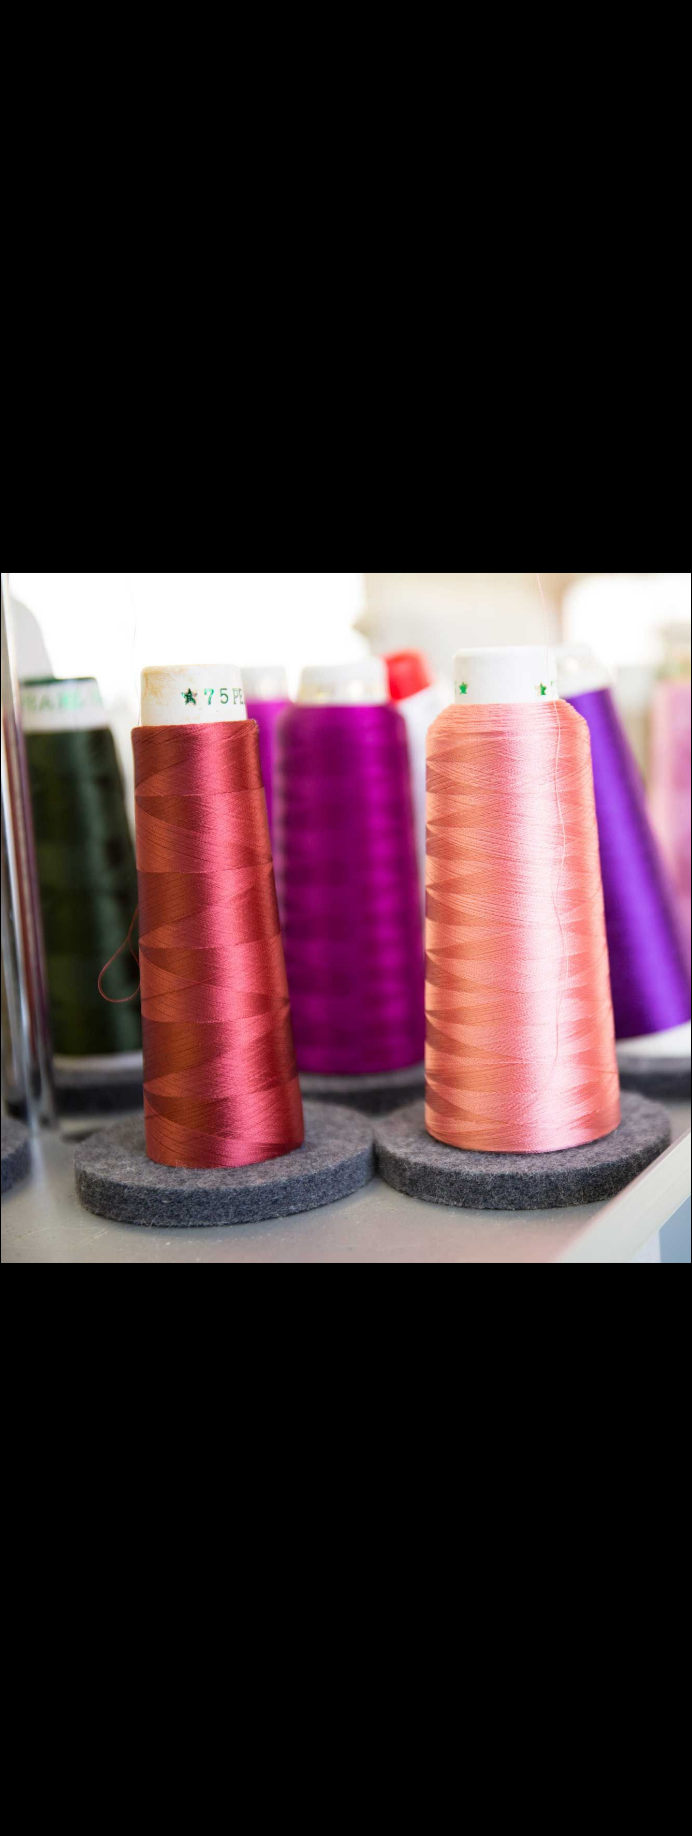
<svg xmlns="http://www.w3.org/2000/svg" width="692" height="1836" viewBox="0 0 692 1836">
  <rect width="100%" height="100%" fill="#000"/>
  <image x="1" y="572" width="690" height="691" href="img/1.png"/>
</svg>
